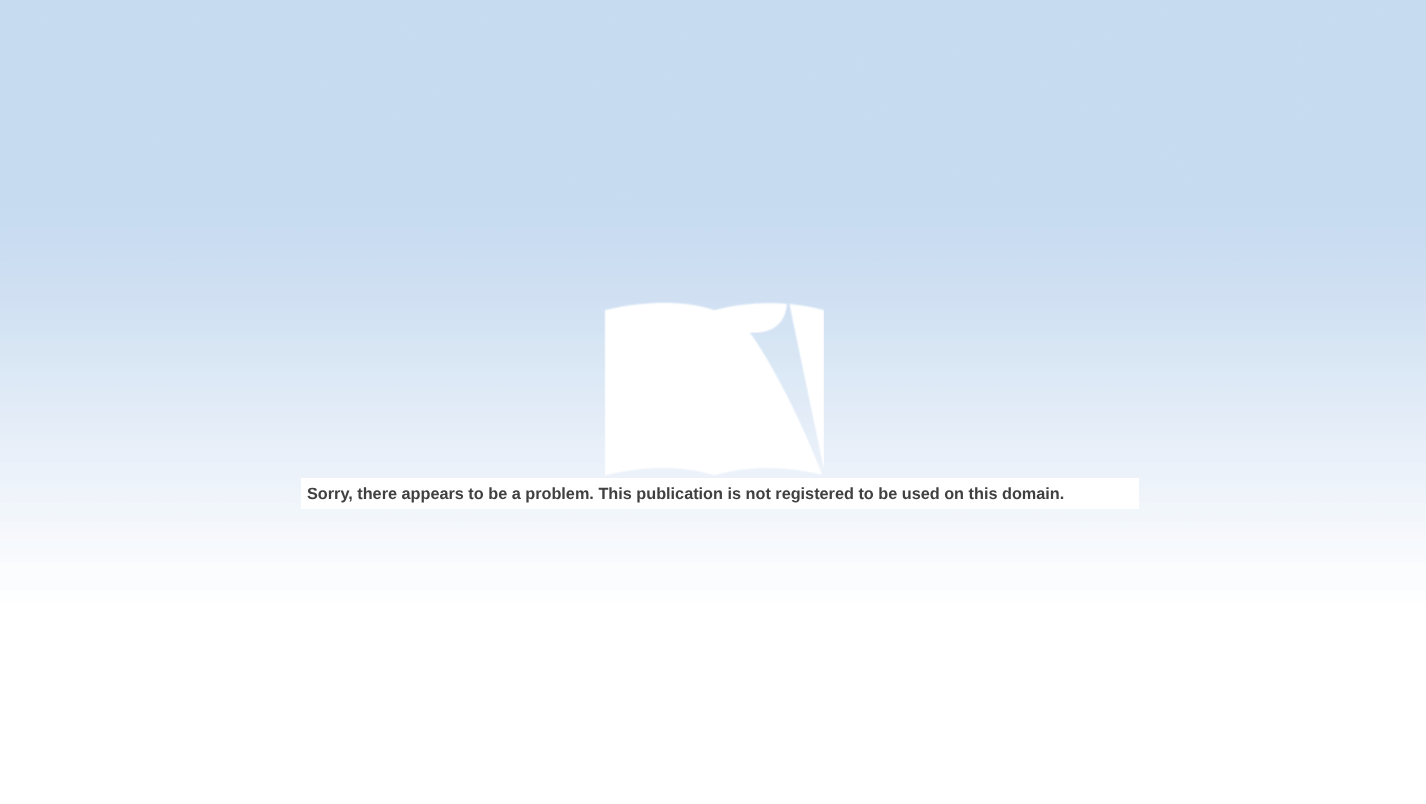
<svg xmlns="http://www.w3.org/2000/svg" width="1426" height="804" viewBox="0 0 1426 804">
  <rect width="100%" height="100%" fill="#fff"/>
  <image x="0" y="0" width="1426" height="804" href="img/1.png"/>
  <image x="604" y="302" width="220" height="174" href="img/2.png"/>
  <path d="M301 478h838v31H301z" fill="#fff"/>
  <text x="307" y="499" font-family="Liberation Sans" font-size="16.25" font-weight="bold" fill="#404040">Sorry, there appears to be a problem. This publication is not registered to be used on this domain.</text>
</svg>
